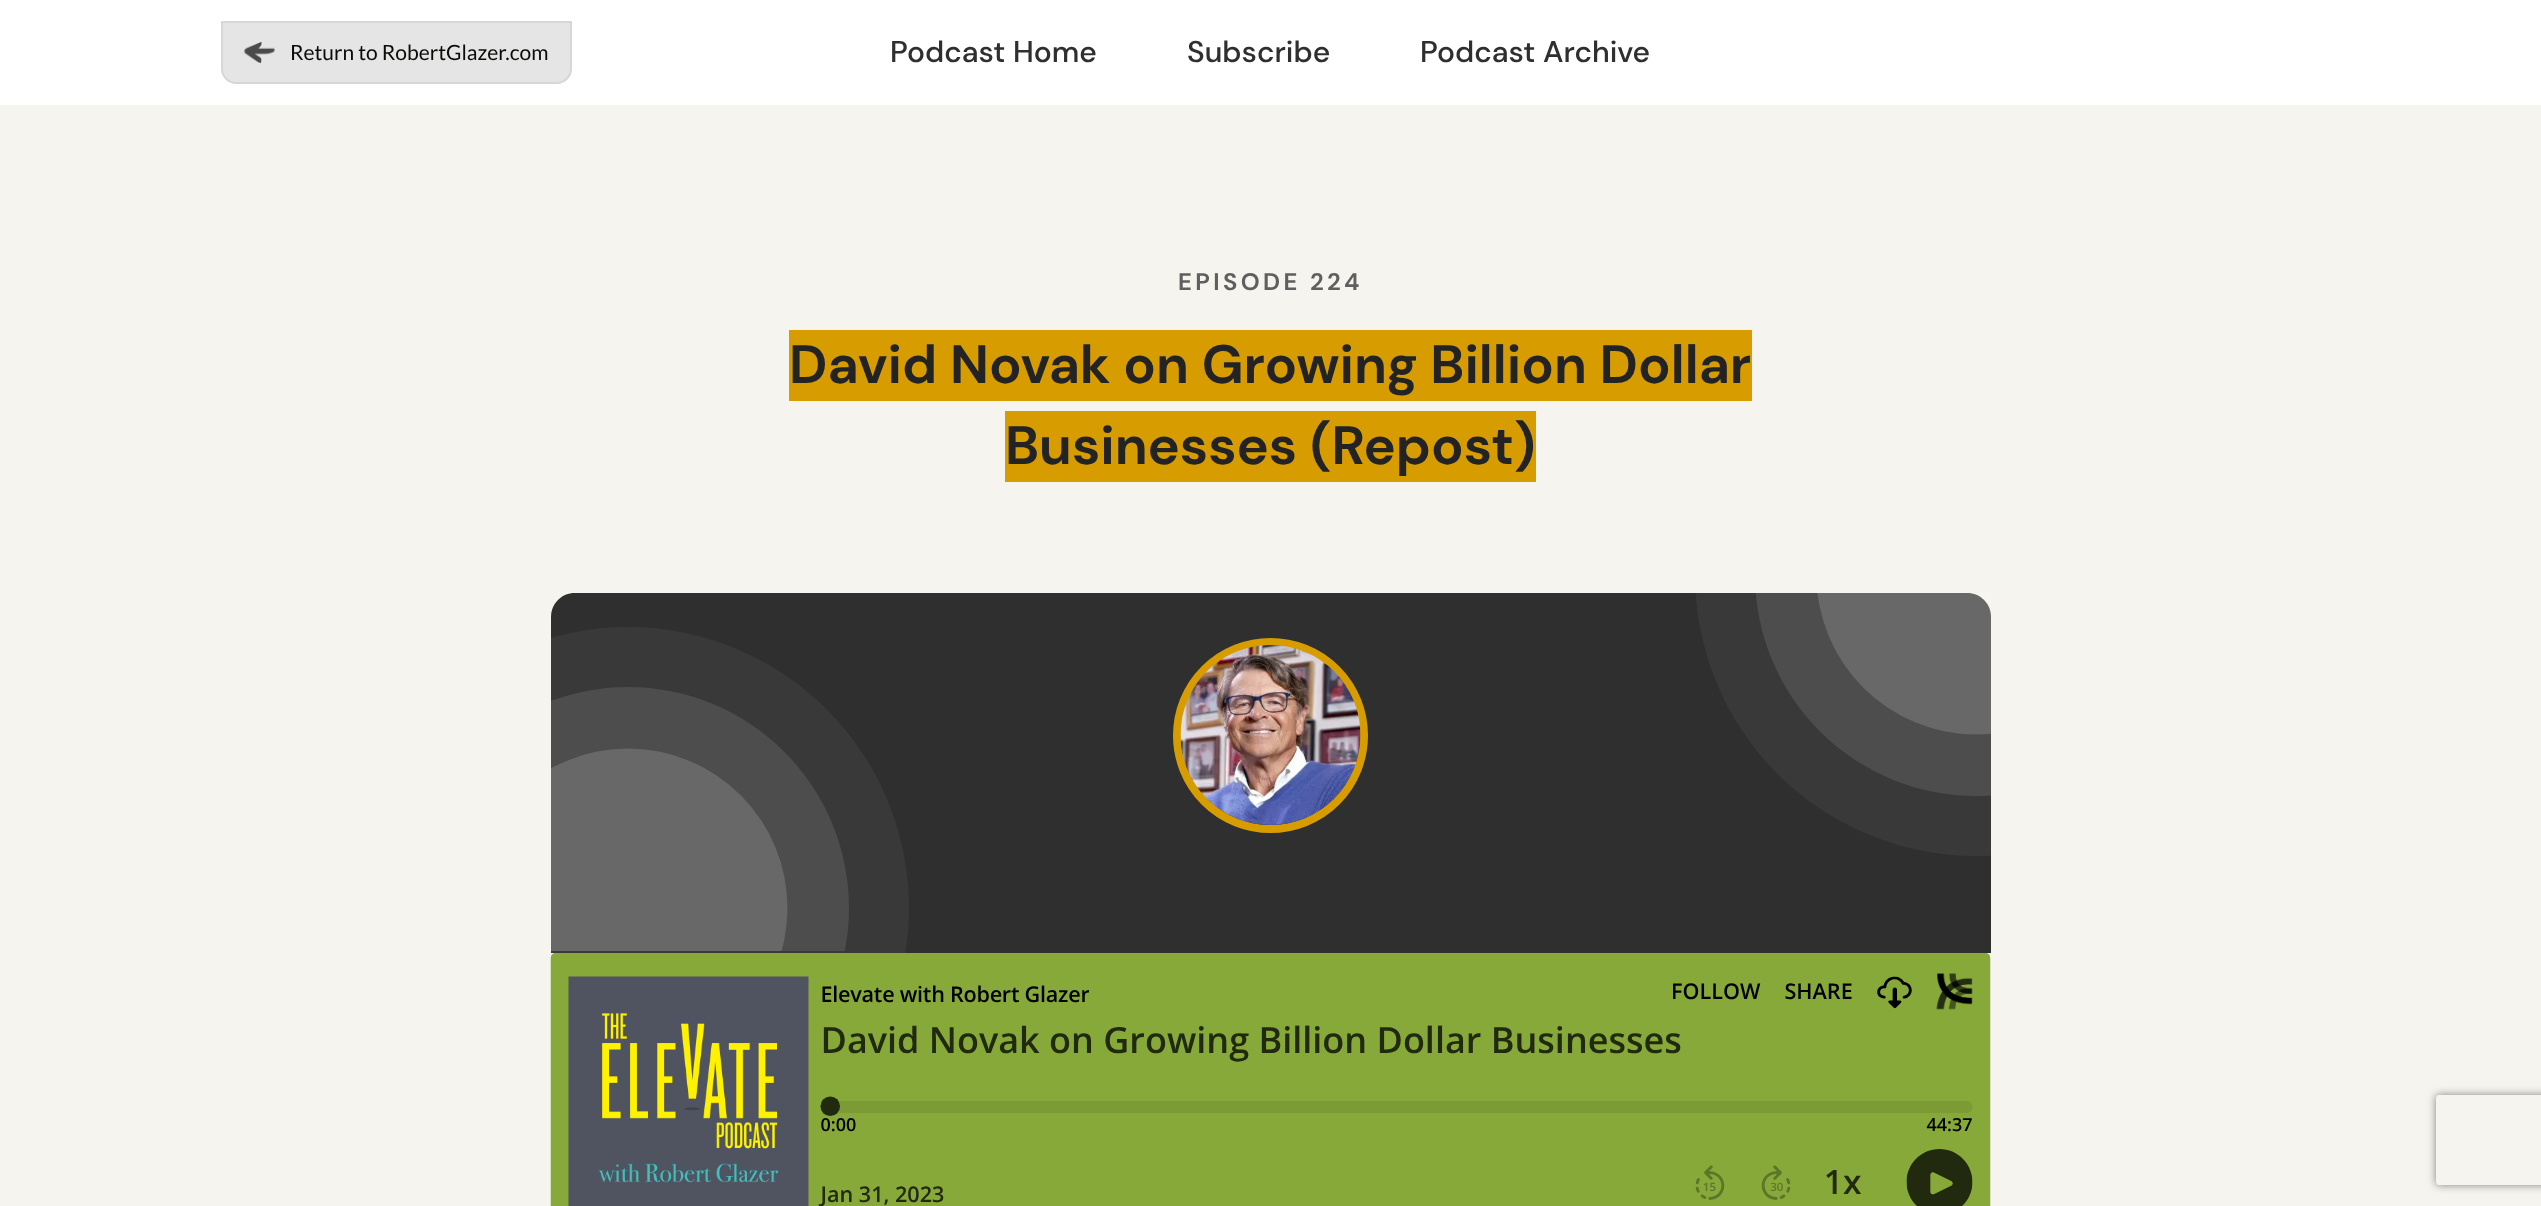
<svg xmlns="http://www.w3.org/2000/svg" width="2541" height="1206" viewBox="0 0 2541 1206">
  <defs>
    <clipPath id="clip1"><path d="M551 627h358v324H551z"/></clipPath>
    <clipPath id="clip2"><path d="M1695 593h296v264H1695z"/></clipPath>
    <clipPath id="clip3"><path d="M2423 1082H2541V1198H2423ZM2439 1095H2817C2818.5 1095 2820 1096.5 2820 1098V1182C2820 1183.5 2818.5 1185 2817 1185H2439C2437.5 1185 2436 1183.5 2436 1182V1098C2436 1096.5 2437.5 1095 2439 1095Z" clip-rule="evenodd"/></clipPath>
  </defs>
  <rect width="100%" height="100%" fill="#fff"/>
  <path d="M222 22H571V69C571 76.5 564.5 83 557 83H236C228.5 83 222 76.5 222 69Z" fill="#e5e5e5" stroke="#d7d7d7" stroke-width="2"/>
  <image x="244" y="42" width="31" height="21" href="img/1.png"/>
  <path d="M0 105h2541v1101H0z" fill="#f5f4ee"/>
  <path d="M789 330h963v71H789z" fill="#d79d00"/>
  <path d="M1005 411h531v71H1005z" fill="#d79d00"/>
  <path d="M575 593H1967C1980.5 593 1991 603.5 1991 617V953H551V617C551 603.5 561.5 593 575 593Z" fill="#2f2f2f"/>
  <g clip-path="url(#clip1)">
    <circle cx="628" cy="908" r="159.5" fill="#4e4e4e"/>
    <circle cx="628" cy="908" r="221" fill="#ffffff1a"/>
  </g>
  <circle cx="628" cy="908" r="281" fill="#ffffff0d"/>
  <circle cx="1270.5" cy="735.5" r="93.5" fill="none" stroke="#d79d00" stroke-width="8"/>
  <image x="1180" y="645" width="181" height="180" href="img/2.png"/>
  <g clip-path="url(#clip2)">
    <circle cx="1976" cy="575" r="159.5" fill="#ffffff26"/>
    <circle cx="1976" cy="575" r="221" fill="#ffffff1a"/>
  </g>
  <circle cx="1976" cy="575" r="281" fill="#ffffff0d"/>
  <image x="550" y="953" width="1441" height="253" href="img/3.png"/>
  <g clip-path="url(#clip3)">
    <rect x="2436" y="1095" width="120" height="90" rx="3" fill="#808080" filter="blur(4px)"/>
  </g>
  <text x="290" y="60" font-family="Lato" font-size="21" fill="#0a0c08">Return to RobertGlazer.com</text>
  <g font-family="DM Sans" font-size="30" font-weight="500" fill="#2f2f2f">
    <text x="890" y="62">Podcast Home</text>
    <text x="1187" y="62">Subscribe</text>
    <text x="1420" y="62">Podcast Archive</text>
  </g>
  <text x="1178" y="290" font-family="DM Sans" font-size="24" font-weight="bold" letter-spacing="3.4" fill="#5f5f5f">EPISODE 224</text>
  <g font-family="DM Sans" font-size="54" font-weight="bold" fill="#232323">
    <text x="789" y="383">David Novak on Growing Billion Dollar</text>
    <text x="1005" y="464">Businesses (Repost)</text>
  </g>
</svg>
